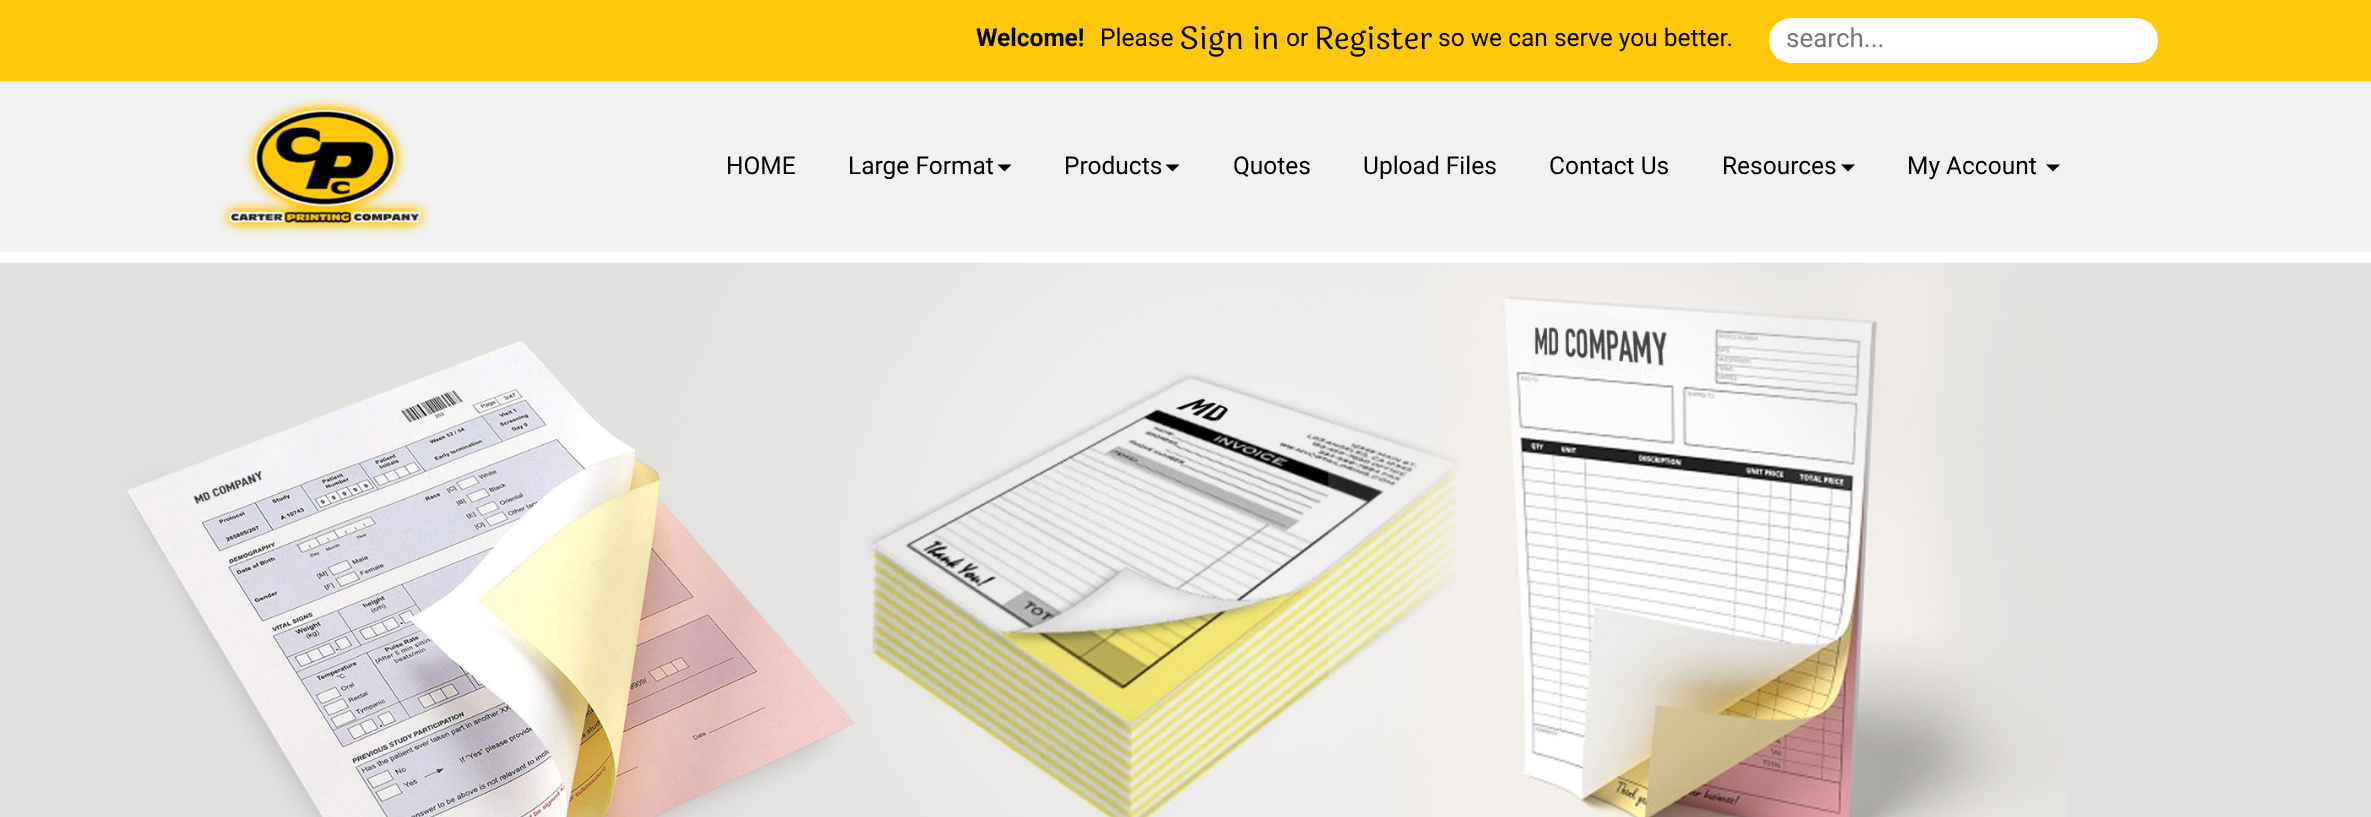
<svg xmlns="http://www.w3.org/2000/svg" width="2371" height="817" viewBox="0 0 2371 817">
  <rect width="100%" height="100%" fill="#fff"/>
  <path d="M0 81h2371v171H0z" fill="#f1f1f1"/>
  <path d="M0 0h2371v81H0z" fill="#ffc80b"/>
  <rect x="1769" y="18" width="389" height="45" rx="22.5" fill="#fff"/>
  <image x="219" y="98" width="212" height="137" href="img/1.png"/>
  <path d="M997.5 164.5H1011.5L1004.5 171.5Z" fill="#000"/>
  <path d="M1165.5 164.5H1179.5L1172.5 171.5Z" fill="#000"/>
  <path d="M1841 164.5H1855L1848 171.5Z" fill="#000"/>
  <path d="M2046 164.5H2060L2053 171.5Z" fill="#000"/>
  <image x="0" y="262" width="2371" height="555" href="img/2.png"/>
  <text x="976" y="46" font-family="Roboto" font-size="24.5" font-weight="bold" fill="#000">Welcome!</text>
  <text x="1100" y="46" font-family="Roboto" font-size="24.5" fill="#000">Please</text>
  <text x="1179" y="49" font-family="Laila" font-size="31.5" fill="#000">Sign in</text>
  <text x="1286" y="46" font-family="Roboto" font-size="24.5" fill="#000">or</text>
  <text x="1314" y="49" font-family="Laila" font-size="31.5" fill="#000">Register</text>
  <text x="1438" y="46" font-family="Roboto" font-size="24.5" fill="#000">so we can serve you better.</text>
  <text x="1786" y="47" font-family="Roboto" font-size="26" fill="#757575">search...</text>
  <g font-family="Roboto" font-size="24.5" fill="#000">
    <text x="726" y="174">HOME</text>
    <text x="848" y="174">Large Format</text>
    <text x="1064" y="174">Products</text>
    <text x="1233" y="174">Quotes</text>
    <text x="1363" y="174">Upload Files</text>
    <text x="1549" y="174">Contact Us</text>
    <text x="1722" y="174">Resources</text>
    <text x="1907" y="174">My Account</text>
  </g>
</svg>
